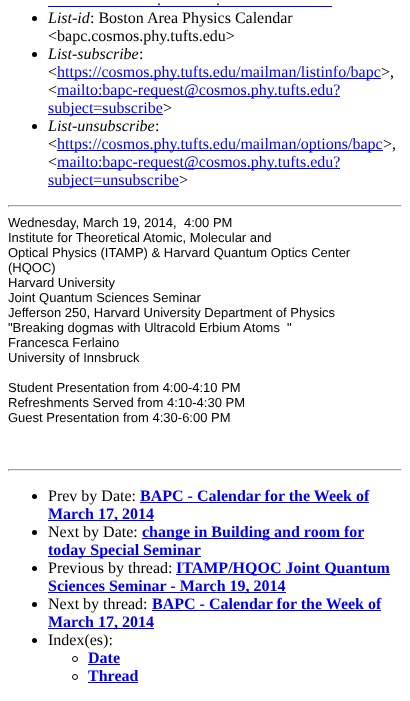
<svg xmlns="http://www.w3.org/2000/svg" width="410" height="701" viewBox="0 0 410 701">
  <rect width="100%" height="100%" fill="#fff"/>
  <path d="M48 6h284v1H48z" fill="#00e"/>
  <circle cx="34.5" cy="18.5" r="2.5" fill="#000"/>
  <circle cx="34.5" cy="54.5" r="2.5" fill="#000"/>
  <path d="M57 78h324v1H57z" fill="#00e"/>
  <path d="M57 96h283v1H57z" fill="#00e"/>
  <path d="M48 114h115v1H48z" fill="#00e"/>
  <circle cx="34.5" cy="126.5" r="2.5" fill="#000"/>
  <path d="M57 150h326v1H57z" fill="#00e"/>
  <path d="M57 168h283v1H57z" fill="#00e"/>
  <path d="M48 186h131v1H48z" fill="#00e"/>
  <path d="M8 205h394v1H8z" fill="#9f9f9f"/>
  <path d="M401 205h1v2H401z" fill="#eee"/>
  <path d="M8 206h394v1H8z" fill="#eee"/>
  <path d="M8 205h1v2H8z" fill="#9f9f9f"/>
  <path d="M8 469h394v1H8z" fill="#9f9f9f"/>
  <path d="M401 469h1v2H401z" fill="#eee"/>
  <path d="M8 470h394v1H8z" fill="#eee"/>
  <path d="M8 469h1v2H8z" fill="#9f9f9f"/>
  <circle cx="34.5" cy="496.5" r="2.5" fill="#000"/>
  <path d="M140 502h229v1H140z" fill="#00e"/>
  <path d="M48 520h106v1H48z" fill="#00e"/>
  <circle cx="34.5" cy="532.5" r="2.5" fill="#000"/>
  <path d="M142 538h222v1H142z" fill="#00e"/>
  <path d="M48 556h153v1H48z" fill="#00e"/>
  <circle cx="34.5" cy="568.5" r="2.5" fill="#000"/>
  <path d="M176 574h214v1H176z" fill="#00e"/>
  <path d="M48 592h238v1H48z" fill="#00e"/>
  <circle cx="34.5" cy="604.5" r="2.5" fill="#000"/>
  <path d="M152 610h229v1H152z" fill="#00e"/>
  <path d="M48 628h106v1H48z" fill="#00e"/>
  <circle cx="34.5" cy="640.5" r="2.5" fill="#000"/>
  <circle cx="75" cy="659" r="2.5" fill="none" stroke="#000"/>
  <path d="M88 664h32v1H88z" fill="#00e"/>
  <circle cx="75" cy="677" r="2.5" fill="none" stroke="#000"/>
  <path d="M88 682h50v1H88z" fill="#00e"/>
  <g font-family="Liberation Serif" font-size="16" fill="#00e">
    <text x="157" y="5">.</text>
    <text x="216" y="5">.</text>
  </g>
  <text x="48" y="23" font-family="Liberation Serif" font-size="16" font-style="italic" fill="#000">List-id</text>
  <g font-family="Liberation Serif" font-size="16" fill="#000">
    <text x="90" y="23">: Boston Area Physics Calendar</text>
    <text x="48" y="41">&lt;bapc.cosmos.phy.tufts.edu&gt;</text>
  </g>
  <text x="48" y="59" font-family="Liberation Serif" font-size="16" font-style="italic" fill="#000">List-subscribe</text>
  <g font-family="Liberation Serif" font-size="16" fill="#000">
    <text x="139" y="59">:</text>
    <text x="48" y="77">&lt;</text>
  </g>
  <text x="57" y="77" font-family="Liberation Serif" font-size="16" fill="#00e">https://cosmos.phy.tufts.edu/mailman/listinfo/bapc</text>
  <g font-family="Liberation Serif" font-size="16" fill="#000">
    <text x="381" y="77">&gt;,</text>
    <text x="48" y="95">&lt;</text>
  </g>
  <g font-family="Liberation Serif" font-size="16" fill="#00e">
    <text x="57" y="95">mailto:bapc-request@cosmos.phy.tufts.edu?</text>
    <text x="48" y="113">subject=subscribe</text>
  </g>
  <text x="163" y="113" font-family="Liberation Serif" font-size="16" fill="#000">&gt;</text>
  <text x="48" y="131" font-family="Liberation Serif" font-size="16" font-style="italic" fill="#000">List-unsubscribe</text>
  <g font-family="Liberation Serif" font-size="16" fill="#000">
    <text x="155" y="131">:</text>
    <text x="48" y="149">&lt;</text>
  </g>
  <text x="57" y="149" font-family="Liberation Serif" font-size="16" fill="#00e">https://cosmos.phy.tufts.edu/mailman/options/bapc</text>
  <g font-family="Liberation Serif" font-size="16" fill="#000">
    <text x="383" y="149">&gt;,</text>
    <text x="48" y="167">&lt;</text>
  </g>
  <g font-family="Liberation Serif" font-size="16" fill="#00e">
    <text x="57" y="167">mailto:bapc-request@cosmos.phy.tufts.edu?</text>
    <text x="48" y="185">subject=unsubscribe</text>
  </g>
  <text x="179" y="185" font-family="Liberation Serif" font-size="16" fill="#000">&gt;</text>
  <g font-family="Liberation Sans" font-size="13" fill="#000">
    <text x="8" y="227">Wednesday, March 19, 2014,</text>
    <text x="184" y="227">4:00 PM</text>
    <text x="8" y="242">Institute for Theoretical Atomic, Molecular and</text>
    <text x="8" y="257">Optical Physics (ITAMP) &amp; Harvard Quantum Optics Center</text>
    <text x="8" y="272">(HQOC)</text>
    <text x="8" y="287">Harvard University</text>
    <text x="8" y="302">Joint Quantum Sciences Seminar</text>
    <text x="8" y="317">Jefferson 250, Harvard University Department of Physics</text>
    <text x="8" y="332">"Breaking dogmas with Ultracold Erbium Atoms</text>
    <text x="287" y="332">"</text>
    <text x="8" y="347">Francesca Ferlaino</text>
    <text x="8" y="362">University of Innsbruck</text>
    <text x="8" y="392">Student Presentation from 4:00-4:10 PM</text>
    <text x="8" y="407">Refreshments Served from 4:10-4:30 PM</text>
    <text x="8" y="422">Guest Presentation from 4:30-6:00 PM</text>
  </g>
  <text x="48" y="501" font-family="Liberation Serif" font-size="16" fill="#000">Prev by Date:</text>
  <g font-family="Liberation Serif" font-size="16" font-weight="bold" fill="#00e">
    <text x="140" y="501">BAPC - Calendar for the Week of</text>
    <text x="48" y="519">March 17, 2014</text>
  </g>
  <text x="48" y="537" font-family="Liberation Serif" font-size="16" fill="#000">Next by Date:</text>
  <g font-family="Liberation Serif" font-size="16" font-weight="bold" fill="#00e">
    <text x="142" y="537">change in Building and room for</text>
    <text x="48" y="555">today Special Seminar</text>
  </g>
  <text x="48" y="573" font-family="Liberation Serif" font-size="16" fill="#000">Previous by thread:</text>
  <g font-family="Liberation Serif" font-size="16" font-weight="bold" fill="#00e">
    <text x="176" y="573">ITAMP/HQOC Joint Quantum</text>
    <text x="48" y="591">Sciences Seminar - March 19, 2014</text>
  </g>
  <text x="48" y="609" font-family="Liberation Serif" font-size="16" fill="#000">Next by thread:</text>
  <g font-family="Liberation Serif" font-size="16" font-weight="bold" fill="#00e">
    <text x="152" y="609">BAPC - Calendar for the Week of</text>
    <text x="48" y="627">March 17, 2014</text>
  </g>
  <text x="48" y="645" font-family="Liberation Serif" font-size="16" fill="#000">Index(es):</text>
  <g font-family="Liberation Serif" font-size="16" font-weight="bold" fill="#00e">
    <text x="88" y="663">Date</text>
    <text x="88" y="681">Thread</text>
  </g>
</svg>
